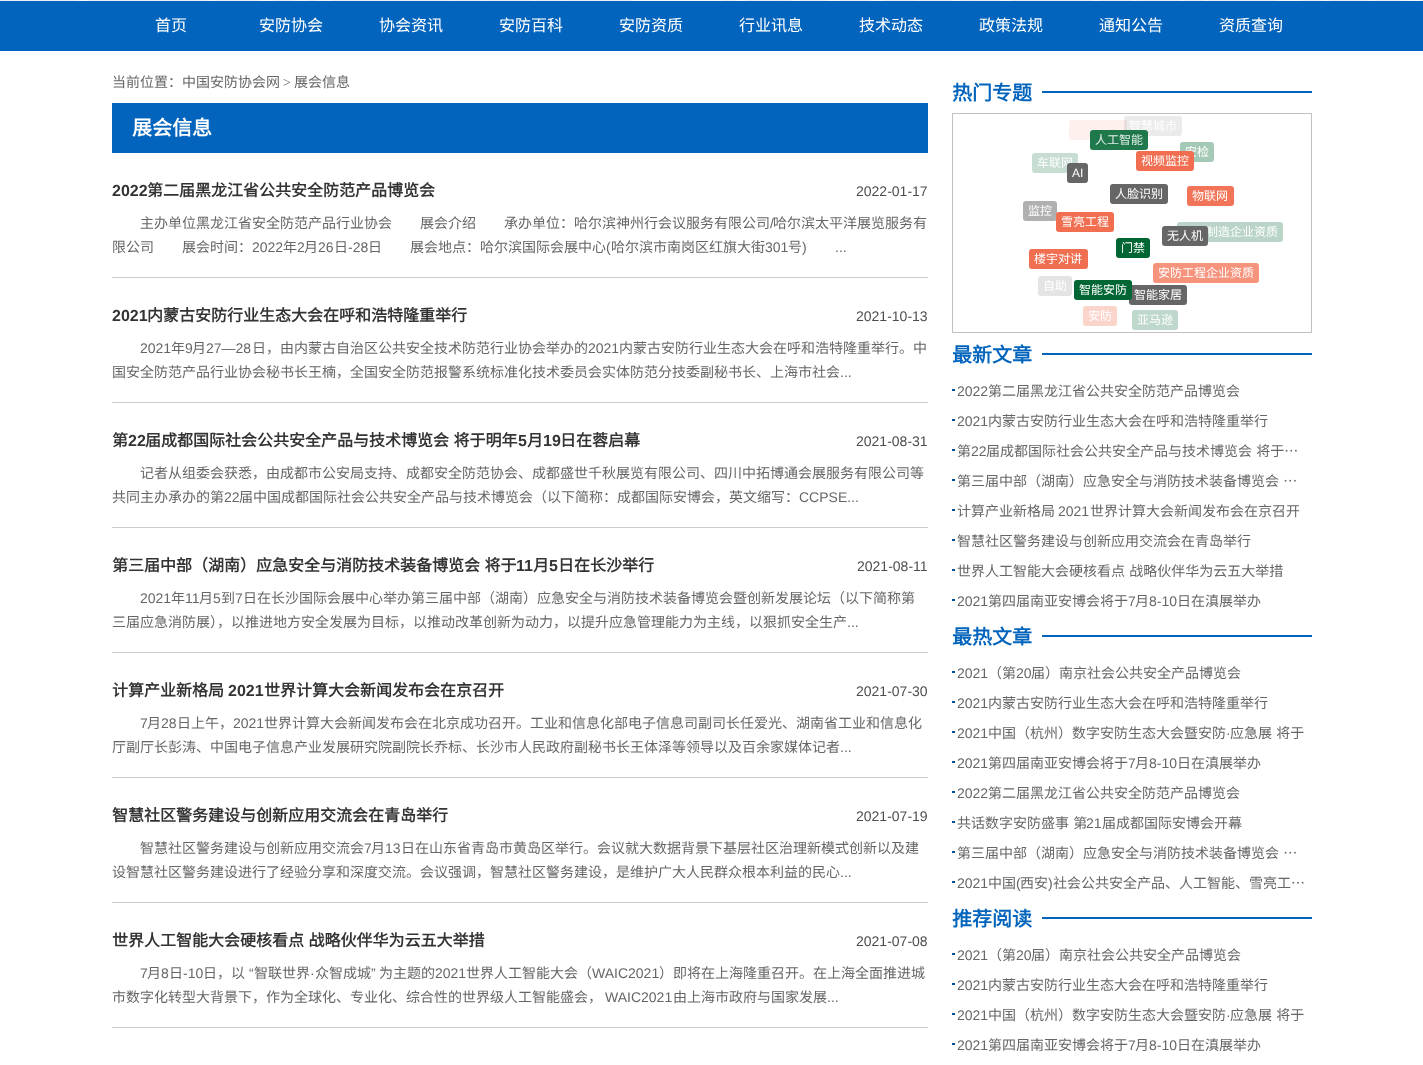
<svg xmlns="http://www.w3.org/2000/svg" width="1423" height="1065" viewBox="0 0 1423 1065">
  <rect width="100%" height="100%" fill="#fff"/>
  <image x="0" y="0" width="1423" height="1" href="img/1.png"/>
  <path d="M0 1h1423v50H0z" fill="#0264bc"/>
  <path d="M112 103h816v50H112z" fill="#0264bc"/>
  <path d="M112 277h816v1H112z" fill="#ccc"/>
  <path d="M112 402h816v1H112z" fill="#ccc"/>
  <path d="M112 527h816v1H112z" fill="#ccc"/>
  <path d="M112 652h816v1H112z" fill="#ccc"/>
  <path d="M112 777h816v1H112z" fill="#ccc"/>
  <path d="M112 902h816v1H112z" fill="#ccc"/>
  <path d="M112 1027h816v1H112z" fill="#ccc"/>
  <path d="M1042 91h270v2H1042z" fill="#0264bc"/>
  <path d="M952.5 113.5h359v219H952.5z" fill="none" stroke="#c0c0c0"/>
  <rect x="1069" y="120" width="58" height="20" rx="3" fill="#fef0ec"/>
  <rect x="1124" y="116" width="58" height="20" rx="3" fill="#66666621"/>
  <rect x="1180" y="142" width="34" height="20" rx="3" fill="#a5c9b7"/>
  <rect x="1032" y="153" width="46" height="20" rx="3" fill="#c7ddd2"/>
  <rect x="1110" y="184" width="58" height="20" rx="3" fill="#666"/>
  <rect x="1187" y="186" width="47" height="20" rx="3" fill="#f27458"/>
  <rect x="1023" y="201" width="34" height="20" rx="3" fill="#b0b0b0"/>
  <rect x="1056" y="212" width="58" height="20" rx="3" fill="#f16e50"/>
  <rect x="1177" y="222" width="106" height="20" rx="3" fill="#bad5c8"/>
  <rect x="1116" y="238" width="34" height="20" rx="3" fill="#063"/>
  <rect x="1029" y="249" width="59" height="20" rx="3" fill="#f16f51"/>
  <rect x="1153" y="263" width="106" height="20" rx="3" fill="#f5937c"/>
  <rect x="1038" y="276" width="34" height="20" rx="3" fill="#e4e4e4"/>
  <rect x="1129" y="285" width="58" height="20" rx="3" fill="#666"/>
  <rect x="1074" y="280" width="58" height="20" rx="3" fill="#063"/>
  <rect x="1083" y="306" width="34" height="20" rx="3" fill="#fbd4cc"/>
  <rect x="1132" y="310" width="46" height="20" rx="3" fill="#bfd8cc"/>
  <path d="M1042 353h270v2H1042z" fill="#0264bc"/>
  <path d="M952 389h3v2H952z" fill="#004e98"/>
  <path d="M952 419h3v2H952z" fill="#004e98"/>
  <path d="M952 449h3v2H952z" fill="#004e98"/>
  <path d="M952 479h3v2H952z" fill="#004e98"/>
  <path d="M952 509h3v2H952z" fill="#004e98"/>
  <path d="M952 539h3v2H952z" fill="#004e98"/>
  <path d="M952 569h3v2H952z" fill="#004e98"/>
  <path d="M952 599h3v2H952z" fill="#004e98"/>
  <path d="M1042 635h270v2H1042z" fill="#0264bc"/>
  <path d="M952 671h3v2H952z" fill="#004e98"/>
  <path d="M952 701h3v2H952z" fill="#004e98"/>
  <path d="M952 731h3v2H952z" fill="#004e98"/>
  <path d="M952 761h3v2H952z" fill="#004e98"/>
  <path d="M952 791h3v2H952z" fill="#004e98"/>
  <path d="M952 821h3v2H952z" fill="#004e98"/>
  <path d="M952 851h3v2H952z" fill="#004e98"/>
  <path d="M952 881h3v2H952z" fill="#004e98"/>
  <path d="M1042 917h270v2H1042z" fill="#0264bc"/>
  <path d="M952 953h3v2H952z" fill="#004e98"/>
  <path d="M952 983h3v2H952z" fill="#004e98"/>
  <path d="M952 1013h3v2H952z" fill="#004e98"/>
  <path d="M952 1043h3v2H952z" fill="#004e98"/>
  <g font-family="Noto Sans CJK SC" font-size="16" fill="#fff">
    <text x="155" y="31">首页</text>
    <text x="259" y="31">安防协会</text>
    <text x="379" y="31">协会资讯</text>
    <text x="499" y="31">安防百科</text>
    <text x="619" y="31">安防资质</text>
    <text x="739" y="31">行业讯息</text>
    <text x="859" y="31">技术动态</text>
    <text x="979" y="31">政策法规</text>
    <text x="1099" y="31">通知公告</text>
    <text x="1219" y="31">资质查询</text>
  </g>
  <text x="112" y="87" font-family="Noto Sans CJK SC" font-size="14" fill="#666">当前位置：中国安防协会网</text>
  <text x="283" y="87" font-family="Liberation Serif" font-size="14" fill="#666">&gt;</text>
  <text x="294" y="87" font-family="Noto Sans CJK SC" font-size="14" fill="#666">展会信息</text>
  <text x="132" y="135" font-family="Noto Sans CJK SC" font-size="20" font-weight="bold" fill="#fff">展会信息</text>
  <text x="112" y="196" font-family="Liberation Sans" font-size="16" font-weight="bold" fill="#333">2022</text>
  <text x="147" y="196" font-family="Noto Sans CJK SC" font-size="16" font-weight="bold" fill="#333">第二届黑龙江省公共安全防范产品博览会</text>
  <text x="856" y="196" font-family="Liberation Sans" font-size="14" fill="#4d4d4d">2022-01-17</text>
  <text x="140" y="228" font-family="Noto Sans CJK SC" font-size="14" fill="#666">主办单位黑龙江省安全防范产品行业协会　　展会介绍　　承办单位：哈尔滨神州行会议服务有限公司</text>
  <text x="770" y="228" font-family="Liberation Sans" font-size="14" fill="#666">/</text>
  <g font-family="Noto Sans CJK SC" font-size="14" fill="#666">
    <text x="773" y="228">哈尔滨太平洋展览服务有</text>
    <text x="112" y="252">限公司　　展会时间：</text>
  </g>
  <text x="252" y="252" font-family="Liberation Sans" font-size="14" fill="#666">2022</text>
  <text x="283" y="252" font-family="Noto Sans CJK SC" font-size="14" fill="#666">年</text>
  <text x="297" y="252" font-family="Liberation Sans" font-size="14" fill="#666">2</text>
  <text x="304" y="252" font-family="Noto Sans CJK SC" font-size="14" fill="#666">月</text>
  <text x="318" y="252" font-family="Liberation Sans" font-size="14" fill="#666">26</text>
  <text x="334" y="252" font-family="Noto Sans CJK SC" font-size="14" fill="#666">日</text>
  <text x="348" y="252" font-family="Liberation Sans" font-size="14" fill="#666">-28</text>
  <text x="368" y="252" font-family="Noto Sans CJK SC" font-size="14" fill="#666">日　　展会地点：哈尔滨国际会展中心</text>
  <text x="606" y="252" font-family="Liberation Sans" font-size="14" fill="#666">(</text>
  <text x="611" y="252" font-family="Noto Sans CJK SC" font-size="14" fill="#666">哈尔滨市南岗区红旗大街</text>
  <text x="765" y="252" font-family="Liberation Sans" font-size="14" fill="#666">301</text>
  <text x="788" y="252" font-family="Noto Sans CJK SC" font-size="14" fill="#666">号</text>
  <g font-family="Liberation Sans" font-size="14" fill="#666">
    <text x="802" y="252">)</text>
    <text x="835" y="252">...</text>
  </g>
  <text x="112" y="321" font-family="Liberation Sans" font-size="16" font-weight="bold" fill="#333">2021</text>
  <text x="147" y="321" font-family="Noto Sans CJK SC" font-size="16" font-weight="bold" fill="#333">内蒙古安防行业生态大会在呼和浩特隆重举行</text>
  <text x="856" y="321" font-family="Liberation Sans" font-size="14" fill="#4d4d4d">2021-10-13</text>
  <text x="140" y="353" font-family="Liberation Sans" font-size="14" fill="#666">2021</text>
  <text x="171" y="353" font-family="Noto Sans CJK SC" font-size="14" fill="#666">年</text>
  <text x="185" y="353" font-family="Liberation Sans" font-size="14" fill="#666">9</text>
  <text x="192" y="353" font-family="Noto Sans CJK SC" font-size="14" fill="#666">月</text>
  <text x="206" y="353" font-family="Liberation Sans" font-size="14" fill="#666">27—28</text>
  <text x="252" y="353" font-family="Noto Sans CJK SC" font-size="14" fill="#666">日，由内蒙古自治区公共安全技术防范行业协会举办的</text>
  <text x="588" y="353" font-family="Liberation Sans" font-size="14" fill="#666">2021</text>
  <g font-family="Noto Sans CJK SC" font-size="14" fill="#666">
    <text x="619" y="353">内蒙古安防行业生态大会在呼和浩特隆重举行。中</text>
    <text x="112" y="377">国安全防范产品行业协会秘书长王楠，全国安全防范报警系统标准化技术委员会实体防范分技委副秘书长、上海市社会</text>
  </g>
  <text x="840" y="377" font-family="Liberation Sans" font-size="14" fill="#666">...</text>
  <text x="112" y="446" font-family="Noto Sans CJK SC" font-size="16" font-weight="bold" fill="#333">第</text>
  <text x="128" y="446" font-family="Liberation Sans" font-size="16" font-weight="bold" fill="#333">22</text>
  <text x="145" y="446" word-spacing="1" font-family="Noto Sans CJK SC" font-size="16" font-weight="bold" fill="#333">届成都国际社会公共安全产品与技术博览会 将于明年</text>
  <text x="518" y="446" font-family="Liberation Sans" font-size="16" font-weight="bold" fill="#333">5</text>
  <text x="527" y="446" font-family="Noto Sans CJK SC" font-size="16" font-weight="bold" fill="#333">月</text>
  <text x="543" y="446" font-family="Liberation Sans" font-size="16" font-weight="bold" fill="#333">19</text>
  <text x="560" y="446" font-family="Noto Sans CJK SC" font-size="16" font-weight="bold" fill="#333">日在蓉启幕</text>
  <text x="856" y="446" font-family="Liberation Sans" font-size="14" fill="#4d4d4d">2021-08-31</text>
  <g font-family="Noto Sans CJK SC" font-size="14" fill="#666">
    <text x="140" y="478">记者从组委会获悉，由成都市公安局支持、成都安全防范协会、成都盛世千秋展览有限公司、四川中拓博通会展服务有限公司等</text>
    <text x="112" y="502">共同主办承办的第</text>
  </g>
  <text x="224" y="502" font-family="Liberation Sans" font-size="14" fill="#666">22</text>
  <text x="239" y="502" font-family="Noto Sans CJK SC" font-size="14" fill="#666">届中国成都国际社会公共安全产品与技术博览会（以下简称：成都国际安博会，英文缩写：</text>
  <text x="799" y="502" font-family="Liberation Sans" font-size="14" fill="#666">CCPSE...</text>
  <text x="112" y="571" word-spacing="1" font-family="Noto Sans CJK SC" font-size="16" font-weight="bold" fill="#333">第三届中部（湖南）应急安全与消防技术装备博览会 将于</text>
  <text x="516" y="571" font-family="Liberation Sans" font-size="16" font-weight="bold" fill="#333">11</text>
  <text x="533" y="571" font-family="Noto Sans CJK SC" font-size="16" font-weight="bold" fill="#333">月</text>
  <text x="549" y="571" font-family="Liberation Sans" font-size="16" font-weight="bold" fill="#333">5</text>
  <text x="558" y="571" font-family="Noto Sans CJK SC" font-size="16" font-weight="bold" fill="#333">日在长沙举行</text>
  <text x="857" y="571" font-family="Liberation Sans" font-size="14" fill="#4d4d4d">2021-08-11</text>
  <text x="140" y="603" font-family="Liberation Sans" font-size="14" fill="#666">2021</text>
  <text x="171" y="603" font-family="Noto Sans CJK SC" font-size="14" fill="#666">年</text>
  <text x="185" y="603" font-family="Liberation Sans" font-size="14" fill="#666">11</text>
  <text x="199" y="603" font-family="Noto Sans CJK SC" font-size="14" fill="#666">月</text>
  <text x="213" y="603" font-family="Liberation Sans" font-size="14" fill="#666">5</text>
  <text x="221" y="603" font-family="Noto Sans CJK SC" font-size="14" fill="#666">到</text>
  <text x="235" y="603" font-family="Liberation Sans" font-size="14" fill="#666">7</text>
  <g font-family="Noto Sans CJK SC" font-size="14" fill="#666">
    <text x="243" y="603">日在长沙国际会展中心举办第三届中部（湖南）应急安全与消防技术装备博览会暨创新发展论坛（以下简称第</text>
    <text x="112" y="627">三届应急消防展），以推进地方安全发展为目标，以推动改革创新为动力，以提升应急管理能力为主线，以狠抓安全生产</text>
  </g>
  <text x="847" y="627" font-family="Liberation Sans" font-size="14" fill="#666">...</text>
  <text x="112" y="696" font-family="Noto Sans CJK SC" font-size="16" font-weight="bold" fill="#333">计算产业新格局</text>
  <text x="228" y="696" font-family="Liberation Sans" font-size="16" font-weight="bold" fill="#333">2021</text>
  <text x="264" y="696" font-family="Noto Sans CJK SC" font-size="16" font-weight="bold" fill="#333">世界计算大会新闻发布会在京召开</text>
  <text x="856" y="696" font-family="Liberation Sans" font-size="14" fill="#4d4d4d">2021-07-30</text>
  <text x="140" y="728" font-family="Liberation Sans" font-size="14" fill="#666">7</text>
  <text x="147" y="728" font-family="Noto Sans CJK SC" font-size="14" fill="#666">月</text>
  <text x="161" y="728" font-family="Liberation Sans" font-size="14" fill="#666">28</text>
  <text x="177" y="728" font-family="Noto Sans CJK SC" font-size="14" fill="#666">日上午，</text>
  <text x="233" y="728" font-family="Liberation Sans" font-size="14" fill="#666">2021</text>
  <g font-family="Noto Sans CJK SC" font-size="14" fill="#666">
    <text x="264" y="728">世界计算大会新闻发布会在北京成功召开。工业和信息化部电子信息司副司长任爱光、湖南省工业和信息化</text>
    <text x="112" y="752">厅副厅长彭涛、中国电子信息产业发展研究院副院长乔标、长沙市人民政府副秘书长王体泽等领导以及百余家媒体记者</text>
  </g>
  <text x="840" y="752" font-family="Liberation Sans" font-size="14" fill="#666">...</text>
  <text x="112" y="821" font-family="Noto Sans CJK SC" font-size="16" font-weight="bold" fill="#333">智慧社区警务建设与创新应用交流会在青岛举行</text>
  <text x="856" y="821" font-family="Liberation Sans" font-size="14" fill="#4d4d4d">2021-07-19</text>
  <text x="140" y="853" font-family="Noto Sans CJK SC" font-size="14" fill="#666">智慧社区警务建设与创新应用交流会</text>
  <text x="364" y="853" font-family="Liberation Sans" font-size="14" fill="#666">7</text>
  <text x="371" y="853" font-family="Noto Sans CJK SC" font-size="14" fill="#666">月</text>
  <text x="385" y="853" font-family="Liberation Sans" font-size="14" fill="#666">13</text>
  <g font-family="Noto Sans CJK SC" font-size="14" fill="#666">
    <text x="401" y="853">日在山东省青岛市黄岛区举行。会议就大数据背景下基层社区治理新模式创新以及建</text>
    <text x="112" y="877">设智慧社区警务建设进行了经验分享和深度交流。会议强调，智慧社区警务建设，是维护广大人民群众根本利益的民心</text>
  </g>
  <text x="840" y="877" font-family="Liberation Sans" font-size="14" fill="#666">...</text>
  <text x="112" y="946" word-spacing="1" font-family="Noto Sans CJK SC" font-size="16" font-weight="bold" fill="#333">世界人工智能大会硬核看点 战略伙伴华为云五大举措</text>
  <text x="856" y="946" font-family="Liberation Sans" font-size="14" fill="#4d4d4d">2021-07-08</text>
  <text x="140" y="978" font-family="Liberation Sans" font-size="14" fill="#666">7</text>
  <text x="147" y="978" font-family="Noto Sans CJK SC" font-size="14" fill="#666">月</text>
  <text x="161" y="978" font-family="Liberation Sans" font-size="14" fill="#666">8</text>
  <text x="169" y="978" font-family="Noto Sans CJK SC" font-size="14" fill="#666">日</text>
  <text x="183" y="978" font-family="Liberation Sans" font-size="14" fill="#666">-10</text>
  <text x="203" y="978" font-family="Noto Sans CJK SC" font-size="14" fill="#666">日，以</text>
  <text x="249" y="978" font-family="Liberation Sans" font-size="14" fill="#666">“</text>
  <text x="254" y="978" font-family="Noto Sans CJK SC" font-size="14" fill="#666">智联世界</text>
  <text x="310" y="978" font-family="Liberation Sans" font-size="14" fill="#666">·</text>
  <text x="315" y="978" font-family="Noto Sans CJK SC" font-size="14" fill="#666">众智成城</text>
  <text x="371" y="978" font-family="Liberation Sans" font-size="14" fill="#666">”</text>
  <text x="379" y="978" font-family="Noto Sans CJK SC" font-size="14" fill="#666">为主题的</text>
  <text x="435" y="978" font-family="Liberation Sans" font-size="14" fill="#666">2021</text>
  <text x="466" y="978" font-family="Noto Sans CJK SC" font-size="14" fill="#666">世界人工智能大会（</text>
  <text x="592" y="978" font-family="Liberation Sans" font-size="14" fill="#666">WAIC2021</text>
  <g font-family="Noto Sans CJK SC" font-size="14" fill="#666">
    <text x="659" y="978">）即将在上海隆重召开。在上海全面推进城</text>
    <text x="112" y="1002">市数字化转型大背景下，作为全球化、专业化、综合性的世界级人工智能盛会，</text>
  </g>
  <text x="605" y="1002" font-family="Liberation Sans" font-size="14" fill="#666">WAIC2021</text>
  <text x="673" y="1002" font-family="Noto Sans CJK SC" font-size="14" fill="#666">由上海市政府与国家发展</text>
  <text x="827" y="1002" font-family="Liberation Sans" font-size="14" fill="#666">...</text>
  <text x="952" y="100" font-family="Noto Sans CJK SC" font-size="20" font-weight="bold" fill="#0264bc">热门专题</text>
  <text x="1129" y="130" font-family="Noto Sans CJK SC" font-size="12" fill="#fff">智慧城市</text>
  <rect x="1090" y="130" width="58" height="20" rx="3" fill="#006633e0"/>
  <text x="1095" y="144" font-family="Noto Sans CJK SC" font-size="12" fill="#e4efe9">人工智能</text>
  <g font-family="Noto Sans CJK SC" font-size="12" fill="#fff">
    <text x="1185" y="156">安检</text>
    <text x="1037" y="167">车联网</text>
  </g>
  <rect x="1136" y="151" width="58" height="20" rx="3" fill="#f16e50"/>
  <text x="1141" y="165" font-family="Noto Sans CJK SC" font-size="12" fill="#fff">视频监控</text>
  <rect x="1067" y="163" width="21" height="20" rx="3" fill="#666"/>
  <text x="1072" y="177" font-family="Liberation Sans" font-size="12" fill="#fff">AI</text>
  <g font-family="Noto Sans CJK SC" font-size="12" fill="#fff">
    <text x="1115" y="198">人脸识别</text>
    <text x="1192" y="200">物联网</text>
    <text x="1028" y="215">监控</text>
    <text x="1061" y="226">雪亮工程</text>
    <text x="1206" y="236">制造企业资质</text>
  </g>
  <rect x="1162" y="226" width="46" height="20" rx="3" fill="#666"/>
  <g font-family="Noto Sans CJK SC" font-size="12" fill="#fff">
    <text x="1167" y="240">无人机</text>
    <text x="1121" y="252">门禁</text>
    <text x="1034" y="263">楼宇对讲</text>
    <text x="1158" y="277">安防工程企业资质</text>
    <text x="1043" y="290">自助</text>
    <text x="1079" y="294">智能安防</text>
    <text x="1134" y="299">智能家居</text>
    <text x="1088" y="320">安防</text>
    <text x="1137" y="324">亚马逊</text>
  </g>
  <text x="952" y="362" font-family="Noto Sans CJK SC" font-size="20" font-weight="bold" fill="#0264bc">最新文章</text>
  <text x="957" y="396" font-family="Liberation Sans" font-size="14" fill="#666">2022</text>
  <text x="988" y="396" font-family="Noto Sans CJK SC" font-size="14" fill="#666">第二届黑龙江省公共安全防范产品博览会</text>
  <text x="957" y="426" font-family="Liberation Sans" font-size="14" fill="#666">2021</text>
  <g font-family="Noto Sans CJK SC" font-size="14" fill="#666">
    <text x="988" y="426">内蒙古安防行业生态大会在呼和浩特隆重举行</text>
    <text x="957" y="456">第</text>
  </g>
  <text x="971" y="456" font-family="Liberation Sans" font-size="14" fill="#666">22</text>
  <g font-family="Noto Sans CJK SC" font-size="14" fill="#666">
    <text x="986" y="456" word-spacing="1">届成都国际社会公共安全产品与技术博览会 将于…</text>
    <text x="957" y="486" word-spacing="1">第三届中部（湖南）应急安全与消防技术装备博览会 …</text>
    <text x="957" y="516">计算产业新格局</text>
  </g>
  <text x="1058" y="516" font-family="Liberation Sans" font-size="14" fill="#666">2021</text>
  <g font-family="Noto Sans CJK SC" font-size="14" fill="#666">
    <text x="1090" y="516">世界计算大会新闻发布会在京召开</text>
    <text x="957" y="546">智慧社区警务建设与创新应用交流会在青岛举行</text>
    <text x="957" y="576" word-spacing="1">世界人工智能大会硬核看点 战略伙伴华为云五大举措</text>
  </g>
  <text x="957" y="606" font-family="Liberation Sans" font-size="14" fill="#666">2021</text>
  <text x="988" y="606" font-family="Noto Sans CJK SC" font-size="14" fill="#666">第四届南亚安博会将于</text>
  <text x="1128" y="606" font-family="Liberation Sans" font-size="14" fill="#666">7</text>
  <text x="1135" y="606" font-family="Noto Sans CJK SC" font-size="14" fill="#666">月</text>
  <text x="1149" y="606" font-family="Liberation Sans" font-size="14" fill="#666">8-10</text>
  <text x="1177" y="606" font-family="Noto Sans CJK SC" font-size="14" fill="#666">日在滇展举办</text>
  <text x="952" y="644" font-family="Noto Sans CJK SC" font-size="20" font-weight="bold" fill="#0264bc">最热文章</text>
  <text x="957" y="678" font-family="Liberation Sans" font-size="14" fill="#666">2021</text>
  <text x="988" y="678" font-family="Noto Sans CJK SC" font-size="14" fill="#666">（第</text>
  <text x="1016" y="678" font-family="Liberation Sans" font-size="14" fill="#666">20</text>
  <text x="1031" y="678" font-family="Noto Sans CJK SC" font-size="14" fill="#666">届）南京社会公共安全产品博览会</text>
  <text x="957" y="708" font-family="Liberation Sans" font-size="14" fill="#666">2021</text>
  <text x="988" y="708" font-family="Noto Sans CJK SC" font-size="14" fill="#666">内蒙古安防行业生态大会在呼和浩特隆重举行</text>
  <text x="957" y="738" font-family="Liberation Sans" font-size="14" fill="#666">2021</text>
  <text x="988" y="738" font-family="Noto Sans CJK SC" font-size="14" fill="#666">中国（杭州）数字安防生态大会暨安防</text>
  <text x="1226" y="738" font-family="Liberation Sans" font-size="14" fill="#666">·</text>
  <text x="1230" y="738" word-spacing="1" font-family="Noto Sans CJK SC" font-size="14" fill="#666">应急展 将于</text>
  <text x="957" y="768" font-family="Liberation Sans" font-size="14" fill="#666">2021</text>
  <text x="988" y="768" font-family="Noto Sans CJK SC" font-size="14" fill="#666">第四届南亚安博会将于</text>
  <text x="1128" y="768" font-family="Liberation Sans" font-size="14" fill="#666">7</text>
  <text x="1135" y="768" font-family="Noto Sans CJK SC" font-size="14" fill="#666">月</text>
  <text x="1149" y="768" font-family="Liberation Sans" font-size="14" fill="#666">8-10</text>
  <text x="1177" y="768" font-family="Noto Sans CJK SC" font-size="14" fill="#666">日在滇展举办</text>
  <text x="957" y="798" font-family="Liberation Sans" font-size="14" fill="#666">2022</text>
  <g font-family="Noto Sans CJK SC" font-size="14" fill="#666">
    <text x="988" y="798">第二届黑龙江省公共安全防范产品博览会</text>
    <text x="957" y="828" word-spacing="1">共话数字安防盛事 第</text>
  </g>
  <text x="1086" y="828" font-family="Liberation Sans" font-size="14" fill="#666">21</text>
  <g font-family="Noto Sans CJK SC" font-size="14" fill="#666">
    <text x="1102" y="828">届成都国际安博会开幕</text>
    <text x="957" y="858" word-spacing="1">第三届中部（湖南）应急安全与消防技术装备博览会 …</text>
  </g>
  <text x="957" y="888" font-family="Liberation Sans" font-size="14" fill="#666">2021</text>
  <text x="988" y="888" font-family="Noto Sans CJK SC" font-size="14" fill="#666">中国</text>
  <text x="1016" y="888" font-family="Liberation Sans" font-size="14" fill="#666">(</text>
  <text x="1020" y="888" font-family="Noto Sans CJK SC" font-size="14" fill="#666">西安</text>
  <text x="1048" y="888" font-family="Liberation Sans" font-size="14" fill="#666">)</text>
  <text x="1053" y="888" font-family="Noto Sans CJK SC" font-size="14" fill="#666">社会公共安全产品、人工智能、雪亮工…</text>
  <text x="952" y="926" font-family="Noto Sans CJK SC" font-size="20" font-weight="bold" fill="#0264bc">推荐阅读</text>
  <text x="957" y="960" font-family="Liberation Sans" font-size="14" fill="#666">2021</text>
  <text x="988" y="960" font-family="Noto Sans CJK SC" font-size="14" fill="#666">（第</text>
  <text x="1016" y="960" font-family="Liberation Sans" font-size="14" fill="#666">20</text>
  <text x="1031" y="960" font-family="Noto Sans CJK SC" font-size="14" fill="#666">届）南京社会公共安全产品博览会</text>
  <text x="957" y="990" font-family="Liberation Sans" font-size="14" fill="#666">2021</text>
  <text x="988" y="990" font-family="Noto Sans CJK SC" font-size="14" fill="#666">内蒙古安防行业生态大会在呼和浩特隆重举行</text>
  <text x="957" y="1020" font-family="Liberation Sans" font-size="14" fill="#666">2021</text>
  <text x="988" y="1020" font-family="Noto Sans CJK SC" font-size="14" fill="#666">中国（杭州）数字安防生态大会暨安防</text>
  <text x="1226" y="1020" font-family="Liberation Sans" font-size="14" fill="#666">·</text>
  <text x="1230" y="1020" word-spacing="1" font-family="Noto Sans CJK SC" font-size="14" fill="#666">应急展 将于</text>
  <text x="957" y="1050" font-family="Liberation Sans" font-size="14" fill="#666">2021</text>
  <text x="988" y="1050" font-family="Noto Sans CJK SC" font-size="14" fill="#666">第四届南亚安博会将于</text>
  <text x="1128" y="1050" font-family="Liberation Sans" font-size="14" fill="#666">7</text>
  <text x="1135" y="1050" font-family="Noto Sans CJK SC" font-size="14" fill="#666">月</text>
  <text x="1149" y="1050" font-family="Liberation Sans" font-size="14" fill="#666">8-10</text>
  <text x="1177" y="1050" font-family="Noto Sans CJK SC" font-size="14" fill="#666">日在滇展举办</text>
</svg>
